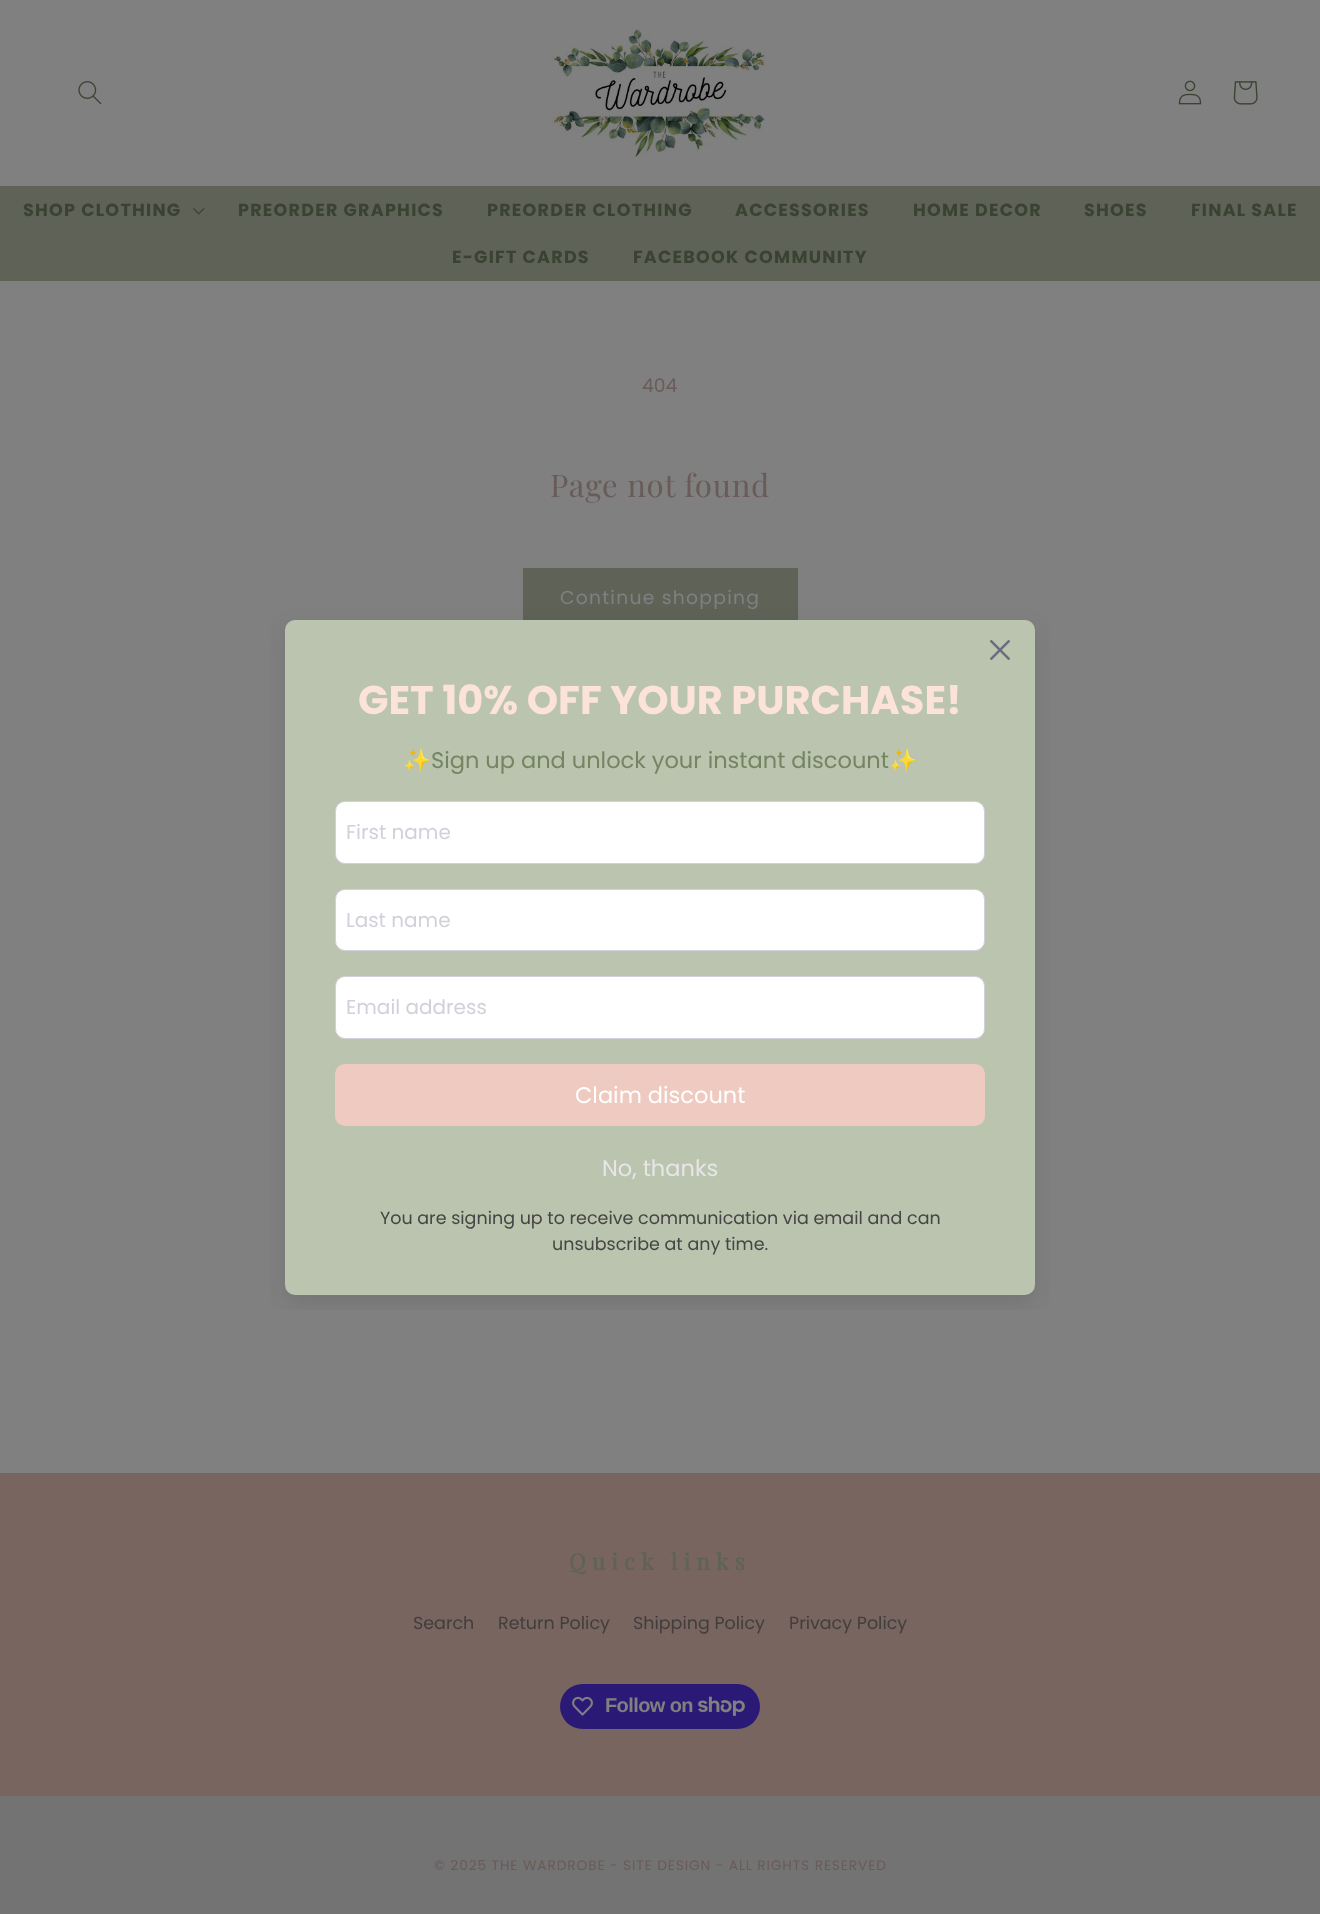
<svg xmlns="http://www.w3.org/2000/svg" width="1320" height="1914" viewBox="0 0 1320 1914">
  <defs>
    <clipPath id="clip1"><path d="M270 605h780v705H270z"/></clipPath>
  </defs>
  <rect width="100%" height="100%" fill="#808080"/>
  <image x="78" y="81" width="24" height="24" href="img/1.png"/>
  <image x="551" y="29" width="215" height="128" href="img/2.png"/>
  <image x="1178" y="80" width="24" height="25" href="img/3.png"/>
  <image x="1233" y="81" width="25" height="24" href="img/4.png"/>
  <path d="M0 186h1320v95H0z" fill="#5e6257"/>
  <image x="193" y="208" width="12" height="7" href="img/5.png"/>
  <path d="M523 568h275v52H523z" fill="#5e6257"/>
  <g clip-path="url(#clip1)">
    <rect x="285" y="630" width="750" height="675" rx="10" fill="#1211271a" filter="blur(12.5px)"/>
  </g>
  <rect x="285" y="620" width="750" height="675" rx="10" fill="#bbc4ae"/>
  <image x="990" y="640" width="20" height="20" href="img/6.png"/>
  <rect x="335.5" y="801.5" width="649" height="62" rx="9.5" fill="#fff" stroke="#d1d1db"/>
  <rect x="335.5" y="889.5" width="649" height="61" rx="9.5" fill="#fff" stroke="#d1d1db"/>
  <rect x="335.5" y="976.5" width="649" height="62" rx="9.5" fill="#fff" stroke="#d1d1db"/>
  <rect x="335" y="1064" width="650" height="62" rx="10" fill="#efcac0"/>
  <path d="M0 1473h1320v323H0z" fill="#786560"/>
  <rect x="560" y="1684" width="200" height="45" rx="22.5" fill="#2a1a76"/>
  <image x="572" y="1696" width="21" height="20" href="img/7.png"/>
  <image x="698" y="1696" width="47" height="20" href="img/8.png"/>
  <path d="M0 1796h1320v118H0z" fill="#747373"/>
  <g font-family="Poppins" font-size="17.5" font-weight="bold" letter-spacing="1.25" fill="#3a4331">
    <text x="23" y="216">SHOP CLOTHING</text>
    <text x="238" y="216">PREORDER GRAPHICS</text>
    <text x="487" y="216">PREORDER CLOTHING</text>
    <text x="735" y="216">ACCESSORIES</text>
    <text x="913" y="216">HOME DECOR</text>
    <text x="1084" y="216">SHOES</text>
    <text x="1191" y="216">FINAL SALE</text>
    <text x="452" y="263">E-GIFT CARDS</text>
    <text x="633" y="263">FACEBOOK COMMUNITY</text>
  </g>
  <text x="642" y="392" font-family="Poppins" font-size="18.75" fill="#695b57">404</text>
  <text x="550" y="497" font-family="Playfair Display" font-size="31.25" letter-spacing="0.75" fill="#695b57">Page not found</text>
  <text x="560" y="604" font-family="Poppins" font-size="18.75" letter-spacing="1.25" fill="#808080">Continue shopping</text>
  <text x="358" y="714" font-family="Poppins" font-size="40" font-weight="bold" fill="#fce3da">GET 10% OFF YOUR PURCHASE!</text>
  <text x="403" y="768" font-family="Noto Color Emoji" font-size="22.5" fill="#738561">✨</text>
  <text x="431" y="768" font-family="Poppins" font-size="22.5" fill="#738561">Sign up and unlock your instant discount</text>
  <text x="889" y="768" font-family="Noto Color Emoji" font-size="22.5" fill="#738561">✨</text>
  <g font-family="Poppins" font-size="20" fill="#d1d1db">
    <text x="346" y="839">First name</text>
    <text x="346" y="927">Last name</text>
    <text x="346" y="1014">Email address</text>
  </g>
  <text x="575" y="1103" font-family="Poppins" font-size="22.5" fill="#fff">Claim discount</text>
  <text x="602" y="1176" font-family="Poppins" font-size="22.5" fill="#e7e6e6">No, thanks</text>
  <g font-family="Poppins" font-size="17.5" fill="#454545">
    <text x="380" y="1224">You are signing up to receive communication via email and can</text>
    <text x="552" y="1250">unsubscribe at any time.</text>
  </g>
  <text x="569" y="1570" font-family="Playfair Display" font-size="22.5" font-weight="bold" letter-spacing="6.25" fill="#5e6257">Quick links</text>
  <g font-family="Poppins" font-size="17.5" fill="#423e3c">
    <text x="413" y="1629">Search</text>
    <text x="498" y="1629">Return Policy</text>
    <text x="633" y="1629">Shipping Policy</text>
    <text x="789" y="1629">Privacy Policy</text>
  </g>
  <text x="605" y="1712" font-family="Liberation Sans" font-size="20" font-weight="bold" letter-spacing="-0.6" fill="#808080">Follow on</text>
  <g font-family="Poppins" font-size="13.75" letter-spacing="0.9" fill="#695b57">
    <text x="434" y="1870">© 2025 THE WARDROBE</text>
    <text x="610" y="1870">- SITE DESIGN - ALL RIGHTS RESERVED</text>
  </g>
</svg>
